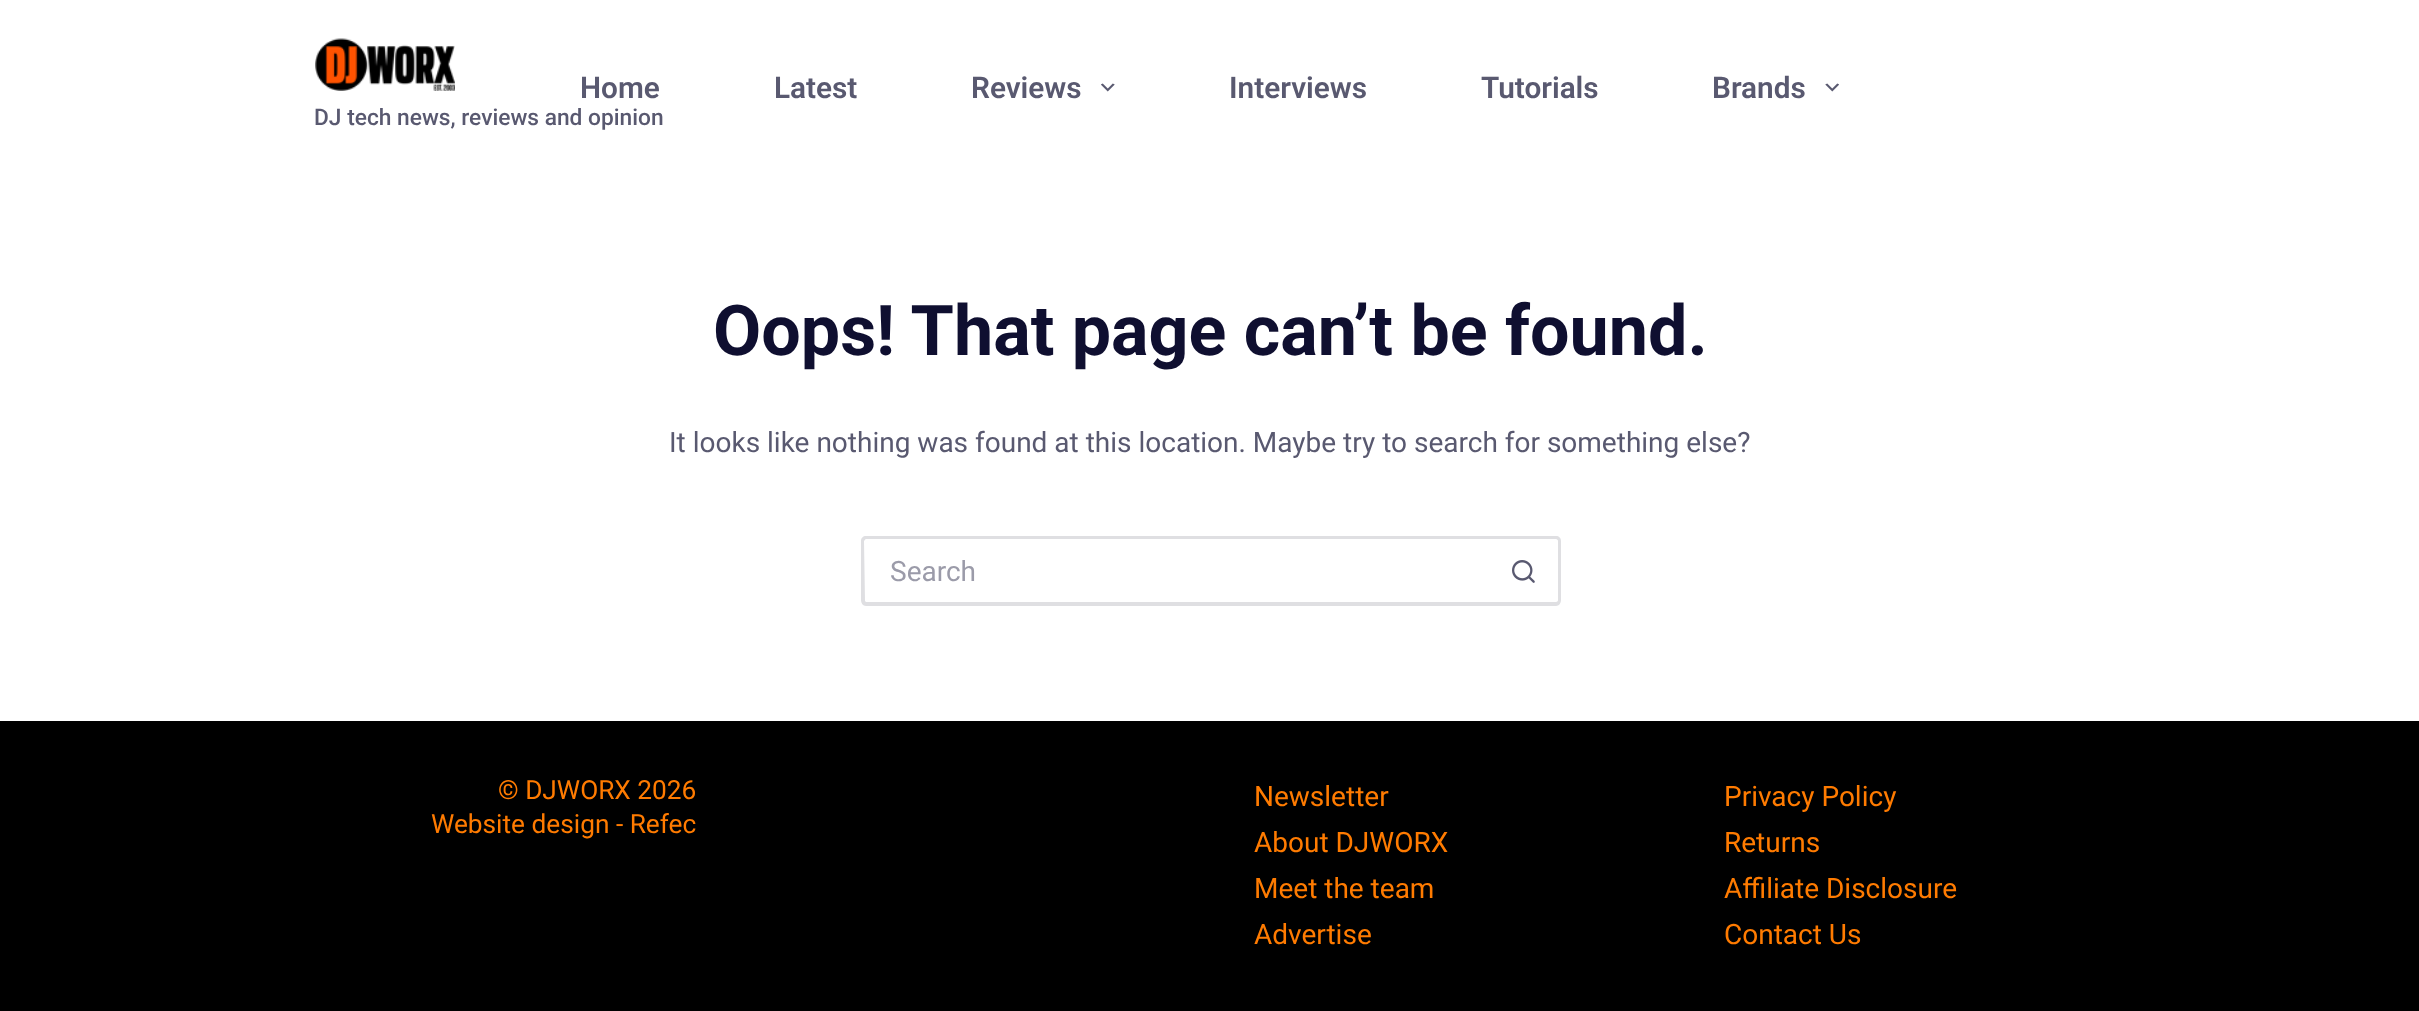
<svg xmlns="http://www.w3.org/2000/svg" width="2419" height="1011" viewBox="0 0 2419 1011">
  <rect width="100%" height="100%" fill="#fff"/>
  <image x="1101" y="83" width="14" height="9" href="img/1.png"/>
  <image x="1825" y="83" width="14" height="9" href="img/2.png"/>
  <image x="315" y="38" width="140" height="53" href="img/3.png"/>
  <path d="M866 536H1491V606H866C863 606 861 603 861 600V541C861 538 863 536 866 536ZM866 539H1491V602H866L865 601L864 541C865 540 865 539 866 539Z" fill="#dfdfe2" fill-rule="evenodd"/>
  <path d="M1491 536H1556C1559 536 1561 538 1561 541V600C1561 603 1559 606 1556 606H1491ZM1491 539H1556C1557 539 1558 540 1558 541V600C1558 601 1557 602 1556 602H1491Z" fill="#dfdfe2" fill-rule="evenodd"/>
  <image x="1512" y="560" width="23" height="23" href="img/4.png"/>
  <path d="M0 721h2419v290H0z" fill="#000"/>
  <g font-family="Roboto" font-size="29.75" font-weight="600" fill="#595970">
    <text x="580" y="98">Home</text>
    <text x="774" y="98">Latest</text>
    <text x="971" y="98">Reviews</text>
    <text x="1229" y="98">Interviews</text>
    <text x="1481" y="98">Tutorials</text>
    <text x="1712" y="98">Brands</text>
  </g>
  <text x="314" y="125" font-family="Roboto" font-size="22.75" font-weight="500" fill="#595970">DJ tech news, reviews and opinion</text>
  <text x="713" y="355" font-family="Roboto" font-size="70" font-weight="bold" fill="#0f0f30">Oops! That page can’t be found.</text>
  <text x="669" y="452" font-family="Roboto" font-size="28" fill="#595970">It looks like nothing was found at this location. Maybe try to search for something else?</text>
  <text x="890" y="581" font-family="Roboto" font-size="28" fill="#9b9ba9">Search</text>
  <g font-family="Roboto" font-size="26.25" fill="#ff7b00">
    <text x="498" y="799">© DJWORX 2026</text>
    <text x="431" y="833">Website design - Refec</text>
  </g>
  <g font-family="Roboto" font-size="28" fill="#ff7b00">
    <text x="1254" y="806">Newsletter</text>
    <text x="1254" y="852">About DJWORX</text>
    <text x="1254" y="898">Meet the team</text>
    <text x="1254" y="944">Advertise</text>
    <text x="1724" y="806">Privacy Policy</text>
    <text x="1724" y="852">Returns</text>
    <text x="1724" y="898">Affiliate Disclosure</text>
    <text x="1724" y="944">Contact Us</text>
  </g>
</svg>
